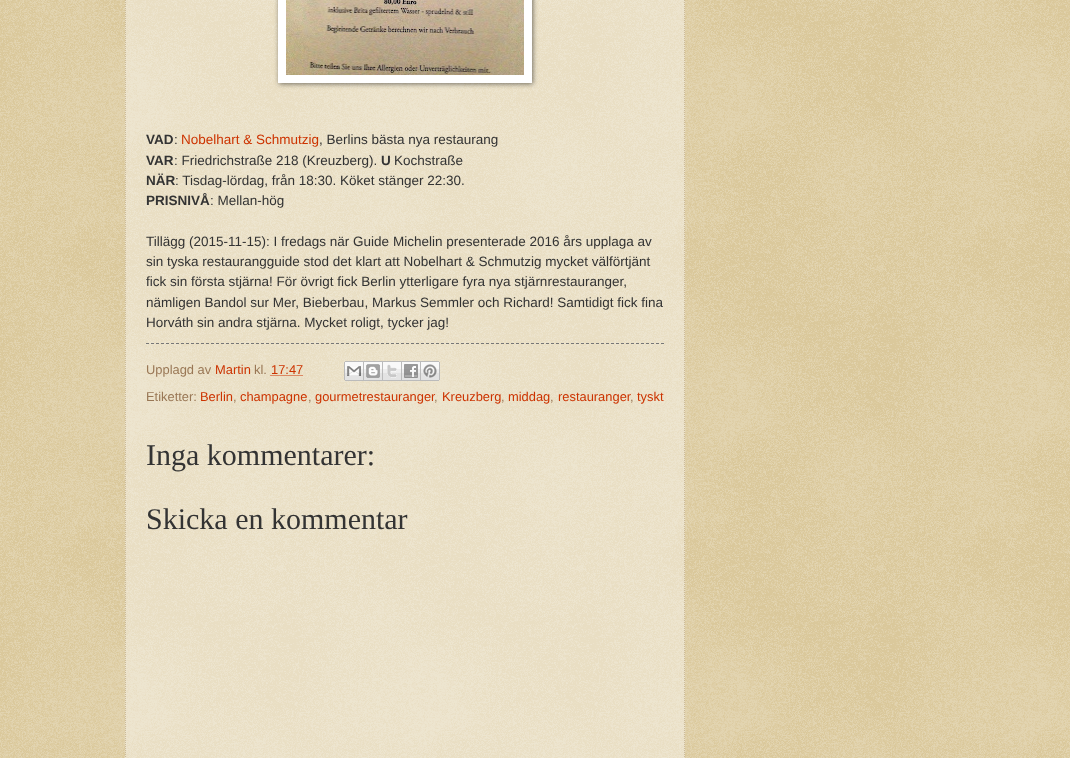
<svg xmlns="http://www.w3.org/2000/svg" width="1070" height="758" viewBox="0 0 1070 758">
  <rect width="100%" height="100%" fill="#c0a154"/>
  <image x="0" y="0" width="1070" height="758" href="img/1.png"/>
  <path d="M125 0h560v758H125z" fill="#ffffff66"/>
  <path d="M684.5-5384V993" fill="none" stroke="#cb9" stroke-dasharray="1 1"/>
  <path d="M125.5-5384V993" fill="none" stroke="#cb9" stroke-dasharray="1 1"/>
  <path d="M279 -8h254v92H279z" fill="#00000080" filter="blur(2.5px)"/>
  <path d="M278 0h254v83H278z" fill="#fff"/>
  <image x="286" y="0" width="238" height="75" href="img/2.png"/>
  <path d="M146 343.5H664" fill="none" stroke="#777" stroke-dasharray="3 2"/>
  <path d="M270.5 375.5H303" fill="none" stroke="#c30" stroke-dasharray="1 1"/>
  <image x="344" y="361" width="20" height="20" href="img/3.png"/>
  <image x="364" y="361" width="19" height="20" href="img/4.png"/>
  <image x="383" y="361" width="19" height="20" href="img/5.png"/>
  <image x="402" y="361" width="19" height="20" href="img/6.png"/>
  <image x="421" y="361" width="19" height="20" href="img/7.png"/>
  <text x="146" y="144" font-family="Liberation Sans" font-size="13.5" font-weight="bold" fill="#333">VAD</text>
  <text x="174" y="144" font-family="Liberation Sans" font-size="13.5" fill="#333">:</text>
  <text x="181" y="144" font-family="Liberation Sans" font-size="13.5" fill="#c30">Nobelhart &amp; Schmutzig</text>
  <text x="319" y="144" font-family="Liberation Sans" font-size="13.5" fill="#333">, Berlins bästa nya restaurang</text>
  <text x="146" y="165" font-family="Liberation Sans" font-size="13.5" font-weight="bold" fill="#333">VAR</text>
  <text x="174" y="165" font-family="Liberation Sans" font-size="13.5" fill="#333">: Friedrichstraße 218 (Kreuzberg).</text>
  <text x="381" y="165" font-family="Liberation Sans" font-size="13.5" font-weight="bold" fill="#333">U</text>
  <text x="394" y="165" font-family="Liberation Sans" font-size="13.5" fill="#333">Kochstraße</text>
  <text x="146" y="185" font-family="Liberation Sans" font-size="13.5" font-weight="bold" fill="#333">NÄR</text>
  <text x="175" y="185" font-family="Liberation Sans" font-size="13.5" fill="#333">: Tisdag-lördag, från 18:30. Köket stänger 22:30.</text>
  <text x="146" y="205" font-family="Liberation Sans" font-size="13.5" font-weight="bold" fill="#333">PRISNIVÅ</text>
  <g font-family="Liberation Sans" font-size="13.5" fill="#333">
    <text x="210" y="205">: Mellan-hög</text>
    <text x="146" y="246">Tillägg (2015-11-15): I fredags när Guide Michelin presenterade 2016 års upplaga av</text>
    <text x="146" y="266">sin tyska restaurangguide stod det klart att Nobelhart &amp; Schmutzig mycket välförtjänt</text>
    <text x="146" y="286">fick sin första stjärna! För övrigt fick Berlin ytterligare fyra nya stjärnrestauranger,</text>
    <text x="146" y="307">nämligen Bandol sur Mer, Bieberbau, Markus Semmler och Richard! Samtidigt fick fina</text>
    <text x="146" y="327">Horváth sin andra stjärna. Mycket roligt, tycker jag!</text>
  </g>
  <text x="146" y="374" font-family="Liberation Sans" font-size="12.9" fill="#975">Upplagd av</text>
  <text x="215" y="374" font-family="Liberation Sans" font-size="12.9" fill="#c30">Martin</text>
  <text x="254" y="374" font-family="Liberation Sans" font-size="12.9" fill="#975">kl.</text>
  <text x="271" y="374" font-family="Liberation Sans" font-size="12.9" fill="#c30">17:47</text>
  <text x="146" y="401" font-family="Liberation Sans" font-size="12.9" fill="#975">Etiketter:</text>
  <text x="200" y="401" font-family="Liberation Sans" font-size="12.9" fill="#c30">Berlin</text>
  <text x="233" y="401" font-family="Liberation Sans" font-size="12.9" fill="#975">,</text>
  <text x="240" y="401" font-family="Liberation Sans" font-size="12.9" fill="#c30">champagne</text>
  <text x="308" y="401" font-family="Liberation Sans" font-size="12.9" fill="#975">,</text>
  <text x="315" y="401" font-family="Liberation Sans" font-size="12.9" fill="#c30">gourmetrestauranger</text>
  <text x="434" y="401" font-family="Liberation Sans" font-size="12.9" fill="#975">,</text>
  <text x="442" y="401" font-family="Liberation Sans" font-size="12.9" fill="#c30">Kreuzberg</text>
  <text x="501" y="401" font-family="Liberation Sans" font-size="12.9" fill="#975">,</text>
  <text x="508" y="401" font-family="Liberation Sans" font-size="12.9" fill="#c30">middag</text>
  <text x="550" y="401" font-family="Liberation Sans" font-size="12.9" fill="#975">,</text>
  <text x="558" y="401" font-family="Liberation Sans" font-size="12.9" fill="#c30">restauranger</text>
  <text x="630" y="401" font-family="Liberation Sans" font-size="12.9" fill="#975">,</text>
  <text x="637" y="401" font-family="Liberation Sans" font-size="12.9" fill="#c30">tyskt</text>
  <g font-family="Liberation Serif" font-size="30" fill="#333">
    <text x="146" y="465">Inga kommentarer:</text>
    <text x="146" y="529">Skicka en kommentar</text>
  </g>
</svg>
